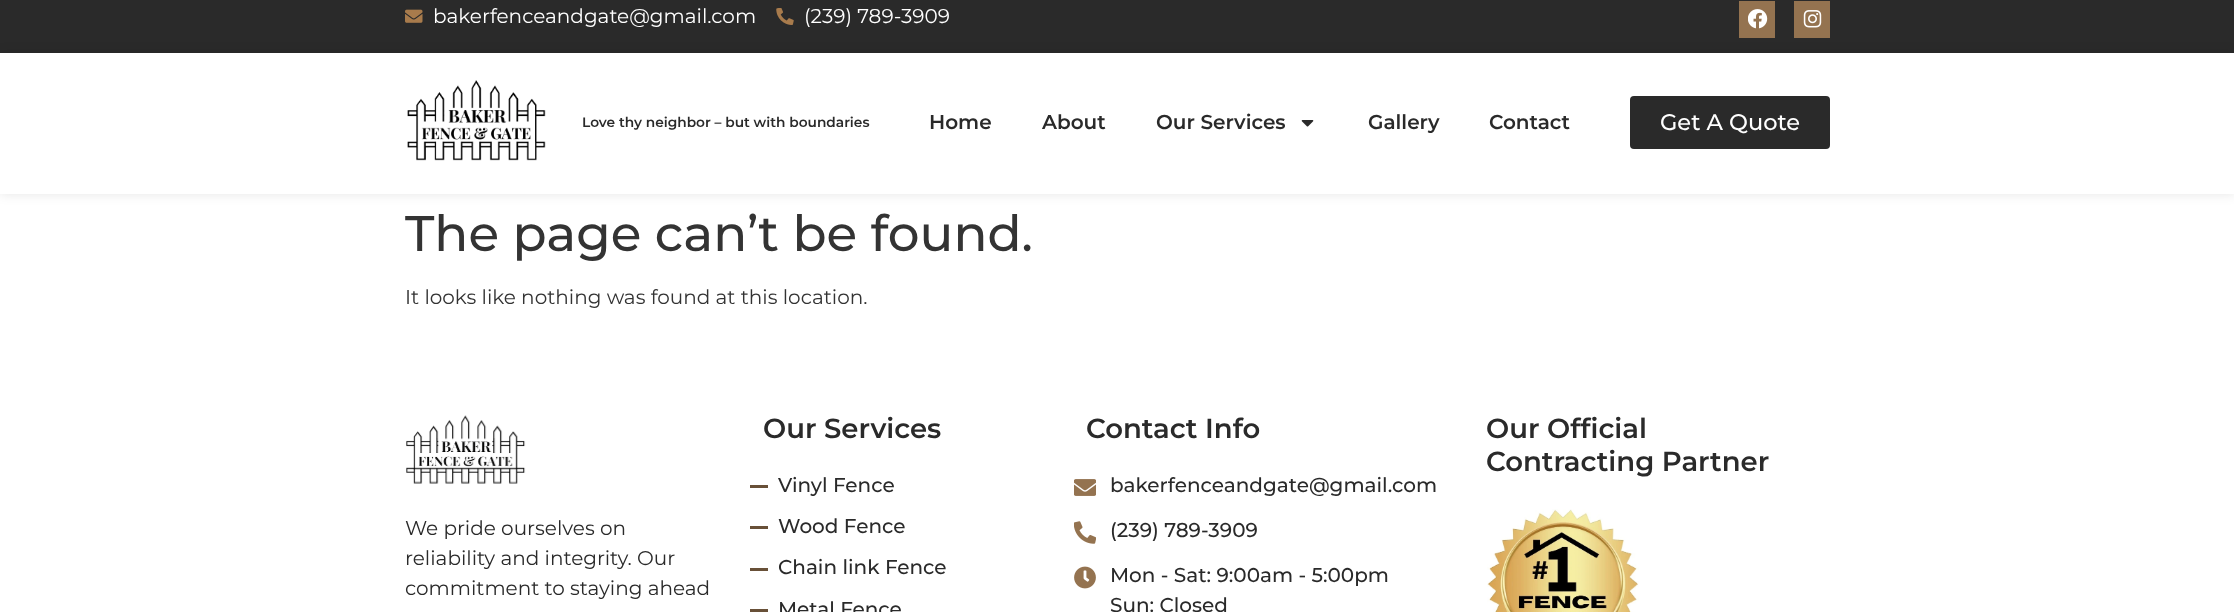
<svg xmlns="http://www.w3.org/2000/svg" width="2234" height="612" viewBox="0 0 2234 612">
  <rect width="100%" height="100%" fill="#fff"/>
  <path d="M0 0h2234v53H0z" fill="#2a2a2a"/>
  <image x="405" y="9" width="18" height="14" href="img/1.png"/>
  <image x="776" y="8" width="18" height="17" href="img/2.png"/>
  <path d="M1739 1h36v37H1739z" fill="#947350"/>
  <image x="1748" y="9" width="20" height="20" href="img/3.png"/>
  <path d="M1794 1h36v37H1794z" fill="#947350"/>
  <image x="1803" y="10" width="19" height="18" href="img/4.png"/>
  <path d="M0 53h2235v141H0z" fill="#0000001a" filter="blur(6px)"/>
  <path d="M0 53h2234v141H0z" fill="#fff"/>
  <image x="407" y="80" width="139" height="81" href="img/5.png"/>
  <image x="1301" y="120" width="13" height="7" href="img/6.png"/>
  <rect x="1630" y="96" width="200" height="53" rx="4" fill="#2a2a2a"/>
  <image x="406" y="415" width="120" height="69" href="img/7.png"/>
  <path d="M750 485h18v3H750z" fill="#685038"/>
  <path d="M750 526h18v3H750z" fill="#685038"/>
  <path d="M750 568h18v3H750z" fill="#685038"/>
  <path d="M750 609h18v3H750z" fill="#685038"/>
  <image x="1074" y="479" width="22" height="17" href="img/8.png"/>
  <image x="1074" y="521" width="22" height="23" href="img/9.png"/>
  <image x="1074" y="566" width="22" height="23" href="img/10.png"/>
  <image x="1487" y="509" width="152" height="103" href="img/11.png"/>
  <g font-family="Montserrat" font-size="20" fill="#fff">
    <text x="433" y="23">bakerfenceandgate@gmail.com</text>
    <text x="804" y="23">(239) 789-3909</text>
  </g>
  <text x="582" y="127" font-family="Montserrat" font-size="13.75" font-weight="600" fill="#2a2a2a">Love thy neighbor – but with boundaries</text>
  <g font-family="Montserrat" font-size="20" font-weight="600" fill="#2a2a2a">
    <text x="929" y="129">Home</text>
    <text x="1042" y="129">About</text>
    <text x="1156" y="129">Our Services</text>
    <text x="1368" y="129">Gallery</text>
    <text x="1489" y="129">Contact</text>
  </g>
  <text x="1660" y="130" font-family="Montserrat" font-size="22.5" font-weight="500" fill="#fff">Get A Quote</text>
  <text x="405" y="251" font-family="Montserrat" font-size="50" font-weight="500" fill="#333">The page can’t be found.</text>
  <text x="405" y="304" font-family="Montserrat" font-size="20" fill="#333">It looks like nothing was found at this location.</text>
  <g font-family="Montserrat" font-size="20" fill="#2a2a2a">
    <text x="405" y="535">We pride ourselves on</text>
    <text x="405" y="565">reliability and integrity. Our</text>
    <text x="405" y="595">commitment to staying ahead</text>
  </g>
  <text x="763" y="438" font-family="Montserrat" font-size="27.5" font-weight="600" fill="#2a2a2a">Our Services</text>
  <g font-family="Montserrat" font-size="20" font-weight="500" fill="#2a2a2a">
    <text x="778" y="492">Vinyl Fence</text>
    <text x="778" y="533">Wood Fence</text>
    <text x="778" y="574">Chain link Fence</text>
    <text x="778" y="616">Metal Fence</text>
  </g>
  <text x="1086" y="438" font-family="Montserrat" font-size="27.5" font-weight="600" fill="#2a2a2a">Contact Info</text>
  <g font-family="Montserrat" font-size="20" font-weight="500" fill="#2a2a2a">
    <text x="1110" y="492">bakerfenceandgate@gmail.com</text>
    <text x="1110" y="537">(239) 789-3909</text>
    <text x="1110" y="582">Mon - Sat: 9:00am - 5:00pm</text>
    <text x="1110" y="612">Sun: Closed</text>
  </g>
  <g font-family="Montserrat" font-size="27.5" font-weight="600" fill="#2a2a2a">
    <text x="1486" y="438">Our Official</text>
    <text x="1486" y="471">Contracting Partner</text>
  </g>
</svg>
